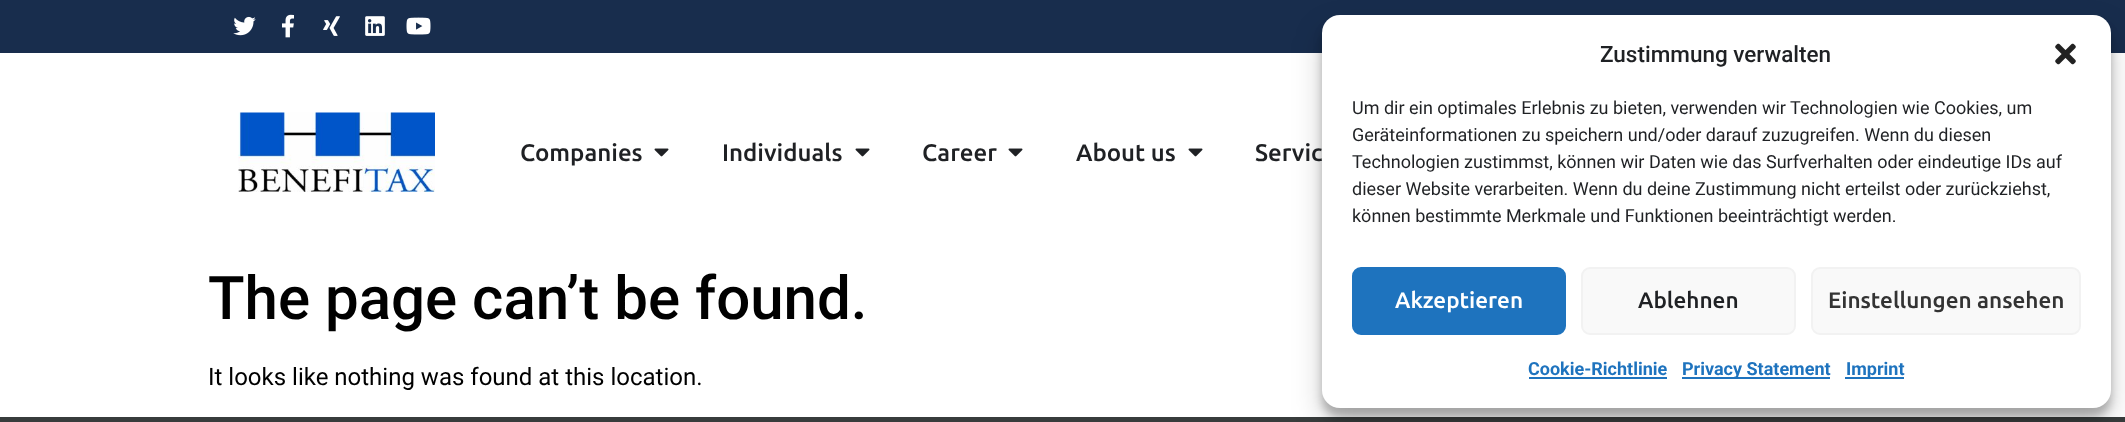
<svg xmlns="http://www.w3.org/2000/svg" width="2125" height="422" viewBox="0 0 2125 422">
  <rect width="100%" height="100%" fill="#fff"/>
  <path d="M0 0h2125v53H0z" fill="#182d4d"/>
  <image x="233" y="16" width="23" height="20" href="img/1.png"/>
  <image x="282" y="14" width="12" height="24" href="img/2.png"/>
  <image x="323" y="16" width="17" height="20" href="img/3.png"/>
  <image x="365" y="16" width="20" height="20" href="img/4.png"/>
  <image x="406" y="17" width="25" height="18" href="img/5.png"/>
  <image x="238" y="112" width="197" height="80" href="img/6.png"/>
  <image x="654" y="148" width="15" height="9" href="img/7.png"/>
  <image x="855" y="148" width="15" height="9" href="img/7.png"/>
  <image x="1008" y="148" width="15" height="9" href="img/7.png"/>
  <image x="1188" y="148" width="15" height="9" href="img/7.png"/>
  <path d="M0 417h2125v5H0z" fill="#383c3c"/>
  <rect x="1322" y="24" width="789" height="393" rx="18" fill="#0000003b" filter="blur(4.5px)"/>
  <rect x="1322" y="30" width="789" height="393" rx="18" fill="#00000030" filter="blur(15px)"/>
  <g font-family="Ubuntu" font-size="24" font-weight="500" fill="#1f2124">
    <text x="520" y="161">Companies</text>
    <text x="722" y="161">Individuals</text>
    <text x="922" y="161">Career</text>
    <text x="1076" y="161">About us</text>
    <text x="1255" y="161">Servic</text>
  </g>
  <rect x="1322" y="15" width="789" height="393" rx="18" fill="#fff"/>
  <text x="1600" y="62" font-family="Roboto" font-size="22.5" font-weight="500" fill="#1f2124">Zustimmung verwalten</text>
  <image x="2055" y="43" width="21" height="22" href="img/8.png"/>
  <g font-family="Roboto" font-size="18" fill="#1f2124">
    <text x="1352" y="114">Um dir ein optimales Erlebnis zu bieten, verwenden wir Technologien wie Cookies, um</text>
    <text x="1352" y="141">Geräteinformationen zu speichern und/oder darauf zuzugreifen. Wenn du diesen</text>
    <text x="1352" y="168">Technologien zustimmst, können wir Daten wie das Surfverhalten oder eindeutige IDs auf</text>
    <text x="1352" y="195">dieser Website verarbeiten. Wenn du deine Zustimmung nicht erteilst oder zurückziehst,</text>
    <text x="1352" y="222">können bestimmte Merkmale und Funktionen beeinträchtigt werden.</text>
  </g>
  <rect x="1353" y="268" width="212" height="66" rx="8" fill="#1e73be" stroke="#1e73be" stroke-width="2"/>
  <text x="1395" y="308" font-family="Ubuntu" font-size="22.5" font-weight="500" fill="#fff">Akzeptieren</text>
  <rect x="1582" y="268" width="213" height="66" rx="8" fill="#f9f9f9" stroke="#f2f2f2" stroke-width="2"/>
  <text x="1638" y="308" font-family="Ubuntu" font-size="22.5" font-weight="500" fill="#1f2124">Ablehnen</text>
  <rect x="1812" y="268" width="268" height="66" rx="8" fill="#f9f9f9" stroke="#f2f2f2" stroke-width="2"/>
  <text x="1828" y="308" font-family="Ubuntu" font-size="22.5" font-weight="500" fill="#333">Einstellungen ansehen</text>
  <text x="1528" y="375" font-family="Roboto" font-size="18" font-weight="bold" fill="#1e73be">Cookie-Richtlinie</text>
  <path d="M1529 377h138v2H1529z" fill="#1e73be"/>
  <path d="M1682 377h148v2H1682z" fill="#1e73be"/>
  <text x="1682" y="375" font-family="Roboto" font-size="18" font-weight="bold" fill="#1e73be">Privacy Statement</text>
  <path d="M1845 377h59v2H1845z" fill="#1e73be"/>
  <text x="1846" y="375" font-family="Roboto" font-size="18" font-weight="bold" fill="#1e73be">Imprint</text>
  <text x="208" y="319" font-family="Roboto" font-size="60" font-weight="500" fill="#000">The page can’t be found.</text>
  <text x="208" y="385" font-family="Roboto" font-size="24" fill="#000">It looks like nothing was found at this location.</text>
</svg>
